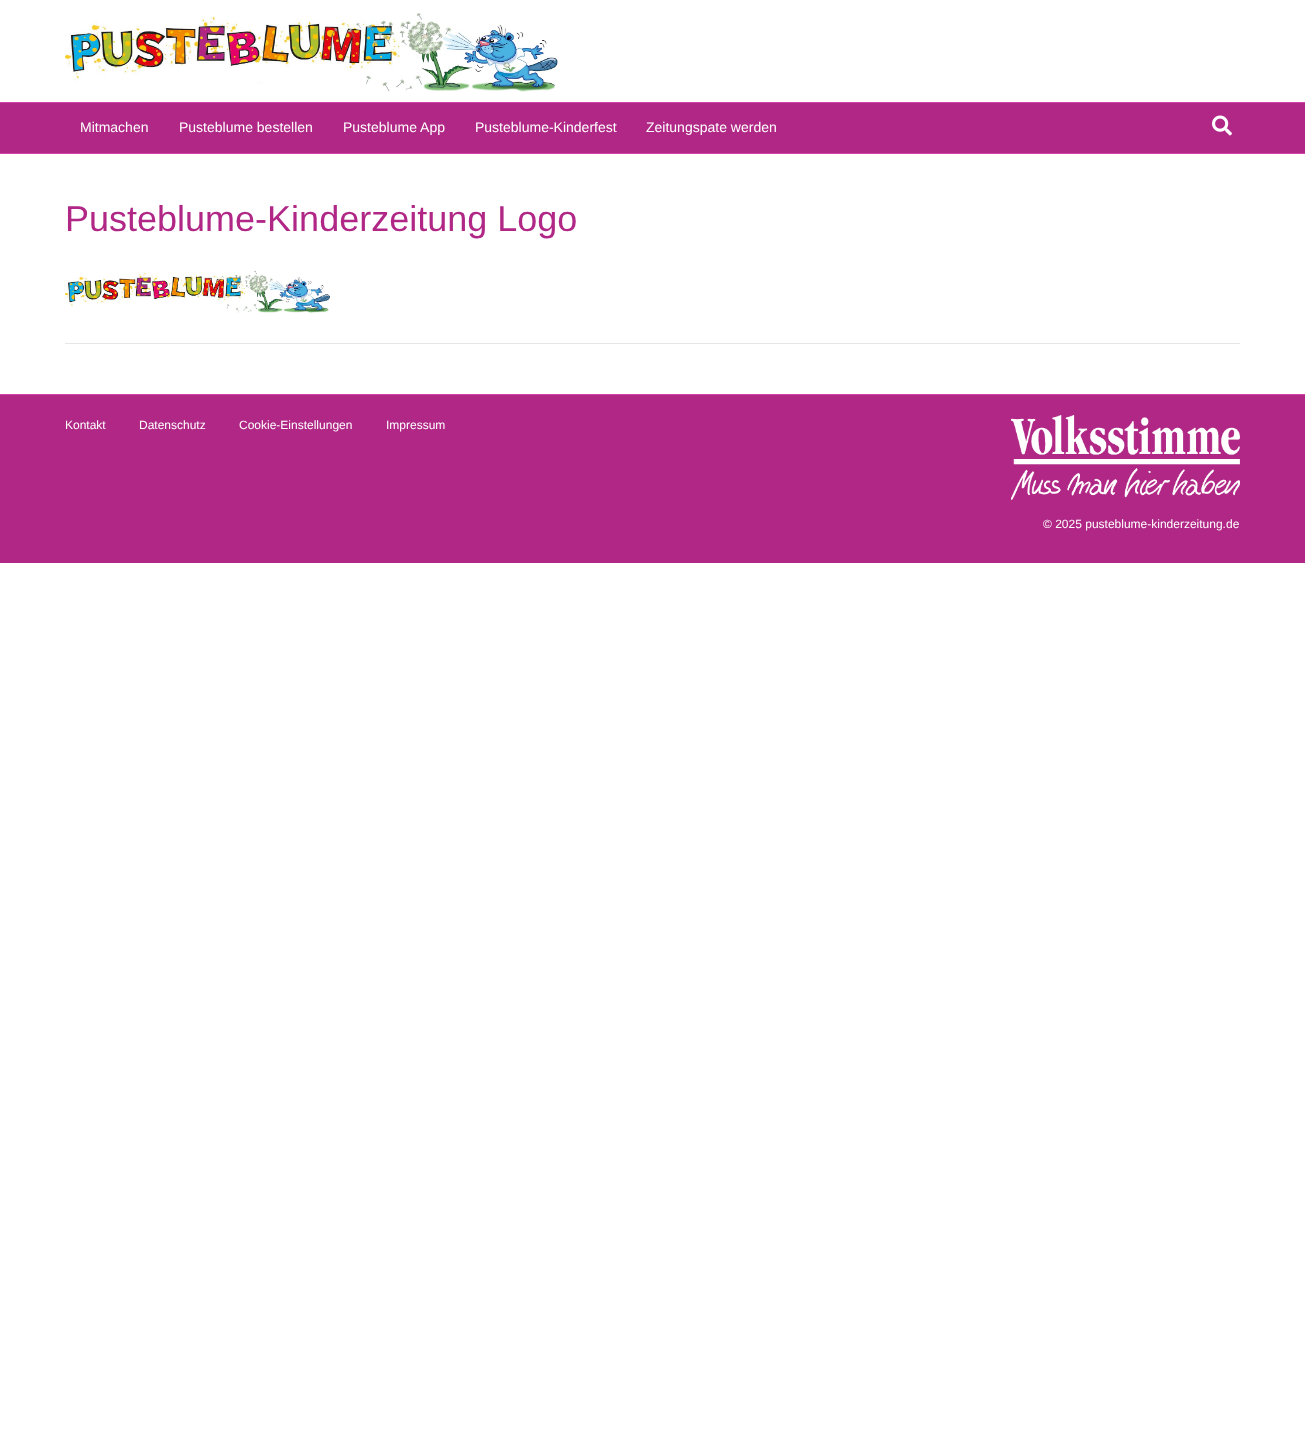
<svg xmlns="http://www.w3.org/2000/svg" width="1305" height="1455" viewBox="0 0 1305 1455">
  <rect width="100%" height="100%" fill="#fff"/>
  <image x="65" y="13" width="493" height="79" href="img/1.png"/>
  <path d="M0 103h1305v50H0z" fill="#b02786"/>
  <path d="M0 102h1305v1H0z" fill="#d644a9"/>
  <path d="M0 153h1305v1H0z" fill="#d644a9"/>
  <image x="1212" y="115" width="20" height="21" href="img/2.png"/>
  <image x="65" y="270" width="265" height="43" href="img/3.png"/>
  <path d="M65 343h1175v1H65z" fill="#e6e6e6"/>
  <path d="M0 395h1305v168H0z" fill="#b02786"/>
  <path d="M0 394h1305v1H0z" fill="#d644a9"/>
  <image x="1011" y="415" width="229" height="85" href="img/4.png"/>
  <g font-family="Liberation Sans" font-size="14" fill="#fff">
    <text x="80" y="132">Mitmachen</text>
    <text x="179" y="132">Pusteblume bestellen</text>
    <text x="343" y="132">Pusteblume App</text>
    <text x="475" y="132">Pusteblume-Kinderfest</text>
    <text x="646" y="132">Zeitungspate werden</text>
  </g>
  <text x="65" y="231" font-family="Liberation Sans" font-size="36" fill="#b02786">Pusteblume-Kinderzeitung Logo</text>
  <g font-family="Liberation Sans" font-size="12" fill="#fff">
    <text x="65" y="429">Kontakt</text>
    <text x="139" y="429">Datenschutz</text>
    <text x="239" y="429">Cookie-Einstellungen</text>
    <text x="386" y="429">Impressum</text>
    <text x="1043" y="528">© 2025 pusteblume-kinderzeitung.de</text>
  </g>
</svg>
